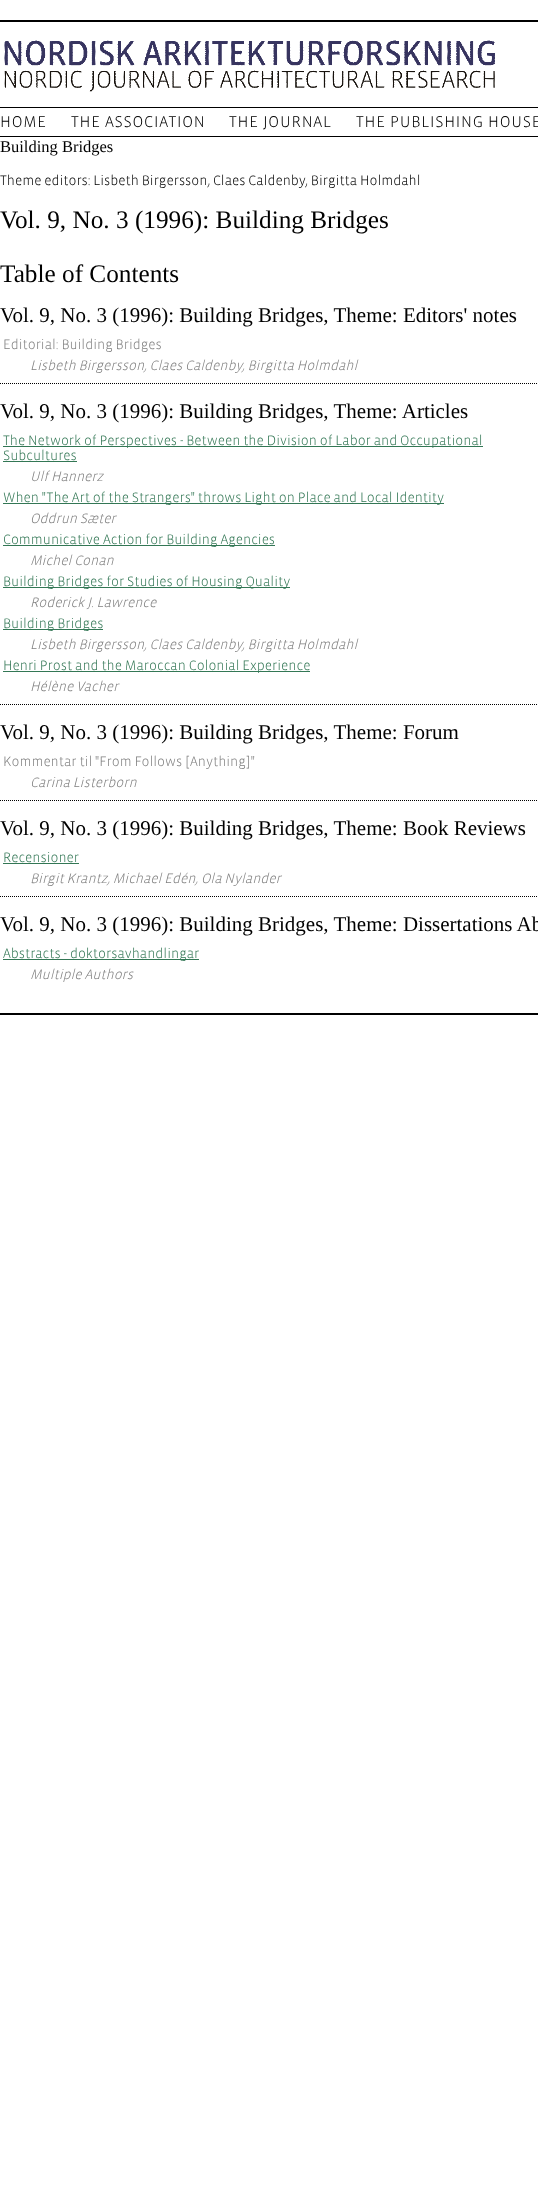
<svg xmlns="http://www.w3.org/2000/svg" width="538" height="2187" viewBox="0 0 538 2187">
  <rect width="100%" height="100%" fill="#fff"/>
  <path d="M0 20h538v2H0z" fill="#000"/>
  <image x="4" y="40" width="491" height="52" href="img/1.png"/>
  <path d="M0 107h538v1H0z" fill="#000"/>
  <path d="M0 136h538v1H0z" fill="#000"/>
  <path d="M0 383.5H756" fill="none" stroke="#000" stroke-dasharray="1 1"/>
  <path d="M3 446h480v1H3z" fill="#375"/>
  <path d="M3 461h74v1H3z" fill="#375"/>
  <path d="M3 503h441v1H3z" fill="#375"/>
  <path d="M3 545h272v1H3z" fill="#375"/>
  <path d="M3 587h287v1H3z" fill="#375"/>
  <path d="M3 629h100v1H3z" fill="#375"/>
  <path d="M3 671h307v1H3z" fill="#375"/>
  <path d="M0 704.5H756" fill="none" stroke="#000" stroke-dasharray="1 1"/>
  <path d="M0 800.5H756" fill="none" stroke="#000" stroke-dasharray="1 1"/>
  <path d="M3 863h76v1H3z" fill="#375"/>
  <path d="M0 896.5H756" fill="none" stroke="#000" stroke-dasharray="1 1"/>
  <path d="M3 959h196v1H3z" fill="#375"/>
  <path d="M0 1013h538v2H0z" fill="#000"/>
  <g font-family="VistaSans" font-size="16" font-weight="300" letter-spacing="0.8" fill="#000">
    <text x="0" y="127">HOME</text>
    <text x="71" y="127">THE ASSOCIATION</text>
    <text x="229" y="127">THE JOURNAL</text>
    <text x="356" y="127">THE PUBLISHING HOUSE</text>
  </g>
  <text x="0" y="152" font-family="Liberation Serif" font-size="16.5" fill="#000">Building Bridges</text>
  <text x="0" y="185" font-family="VistaSans" font-size="14" font-weight="300" fill="#000">Theme editors: Lisbeth Birgersson, Claes Caldenby, Birgitta Holmdahl</text>
  <g font-family="Liberation Serif" font-size="25.25" fill="#000">
    <text x="0" y="228">Vol. 9, No. 3 (1996): Building Bridges</text>
    <text x="0" y="282">Table of Contents</text>
  </g>
  <text x="0" y="322" font-family="Liberation Serif" font-size="21" fill="#000">Vol. 9, No. 3 (1996): Building Bridges, Theme: Editors' notes</text>
  <text x="3" y="349" font-family="VistaSans" font-size="14" font-weight="300" fill="#808080">Editorial: Building Bridges</text>
  <text x="30" y="370" font-family="VistaSans" font-size="14" font-weight="300" font-style="italic" fill="#808080">Lisbeth Birgersson, Claes Caldenby, Birgitta Holmdahl</text>
  <text x="0" y="418" font-family="Liberation Serif" font-size="21" fill="#000">Vol. 9, No. 3 (1996): Building Bridges, Theme: Articles</text>
  <g font-family="VistaSans" font-size="14" font-weight="300" fill="#375">
    <text x="3" y="445">The Network of Perspectives - Between the Division of Labor and Occupational</text>
    <text x="3" y="460">Subcultures</text>
  </g>
  <text x="30" y="481" font-family="VistaSans" font-size="14" font-weight="300" font-style="italic" fill="#808080">Ulf Hannerz</text>
  <text x="3" y="502" font-family="VistaSans" font-size="14" font-weight="300" fill="#375">When "The Art of the Strangers" throws Light on Place and Local Identity</text>
  <text x="30" y="523" font-family="VistaSans" font-size="14" font-weight="300" font-style="italic" fill="#808080">Oddrun Sæter</text>
  <text x="3" y="544" font-family="VistaSans" font-size="14" font-weight="300" fill="#375">Communicative Action for Building Agencies</text>
  <text x="30" y="565" font-family="VistaSans" font-size="14" font-weight="300" font-style="italic" fill="#808080">Michel Conan</text>
  <text x="3" y="586" font-family="VistaSans" font-size="14" font-weight="300" fill="#375">Building Bridges for Studies of Housing Quality</text>
  <text x="30" y="607" font-family="VistaSans" font-size="14" font-weight="300" font-style="italic" fill="#808080">Roderick J. Lawrence</text>
  <text x="3" y="628" font-family="VistaSans" font-size="14" font-weight="300" fill="#375">Building Bridges</text>
  <text x="30" y="649" font-family="VistaSans" font-size="14" font-weight="300" font-style="italic" fill="#808080">Lisbeth Birgersson, Claes Caldenby, Birgitta Holmdahl</text>
  <text x="3" y="670" font-family="VistaSans" font-size="14" font-weight="300" fill="#375">Henri Prost and the Maroccan Colonial Experience</text>
  <text x="30" y="691" font-family="VistaSans" font-size="14" font-weight="300" font-style="italic" fill="#808080">Hélène Vacher</text>
  <text x="0" y="739" font-family="Liberation Serif" font-size="21" fill="#000">Vol. 9, No. 3 (1996): Building Bridges, Theme: Forum</text>
  <text x="3" y="766" font-family="VistaSans" font-size="14" font-weight="300" fill="#808080">Kommentar til "From Follows [Anything]"</text>
  <text x="30" y="787" font-family="VistaSans" font-size="14" font-weight="300" font-style="italic" fill="#808080">Carina Listerborn</text>
  <text x="0" y="835" font-family="Liberation Serif" font-size="21" fill="#000">Vol. 9, No. 3 (1996): Building Bridges, Theme: Book Reviews</text>
  <text x="3" y="862" font-family="VistaSans" font-size="14" font-weight="300" fill="#375">Recensioner</text>
  <text x="30" y="883" font-family="VistaSans" font-size="14" font-weight="300" font-style="italic" fill="#808080">Birgit Krantz, Michael Edén, Ola Nylander</text>
  <text x="0" y="931" font-family="Liberation Serif" font-size="21" fill="#000">Vol. 9, No. 3 (1996): Building Bridges, Theme: Dissertations Ab</text>
  <text x="3" y="958" font-family="VistaSans" font-size="14" font-weight="300" fill="#375">Abstracts - doktorsavhandlingar</text>
  <text x="30" y="979" font-family="VistaSans" font-size="14" font-weight="300" font-style="italic" fill="#808080">Multiple Authors</text>
</svg>
